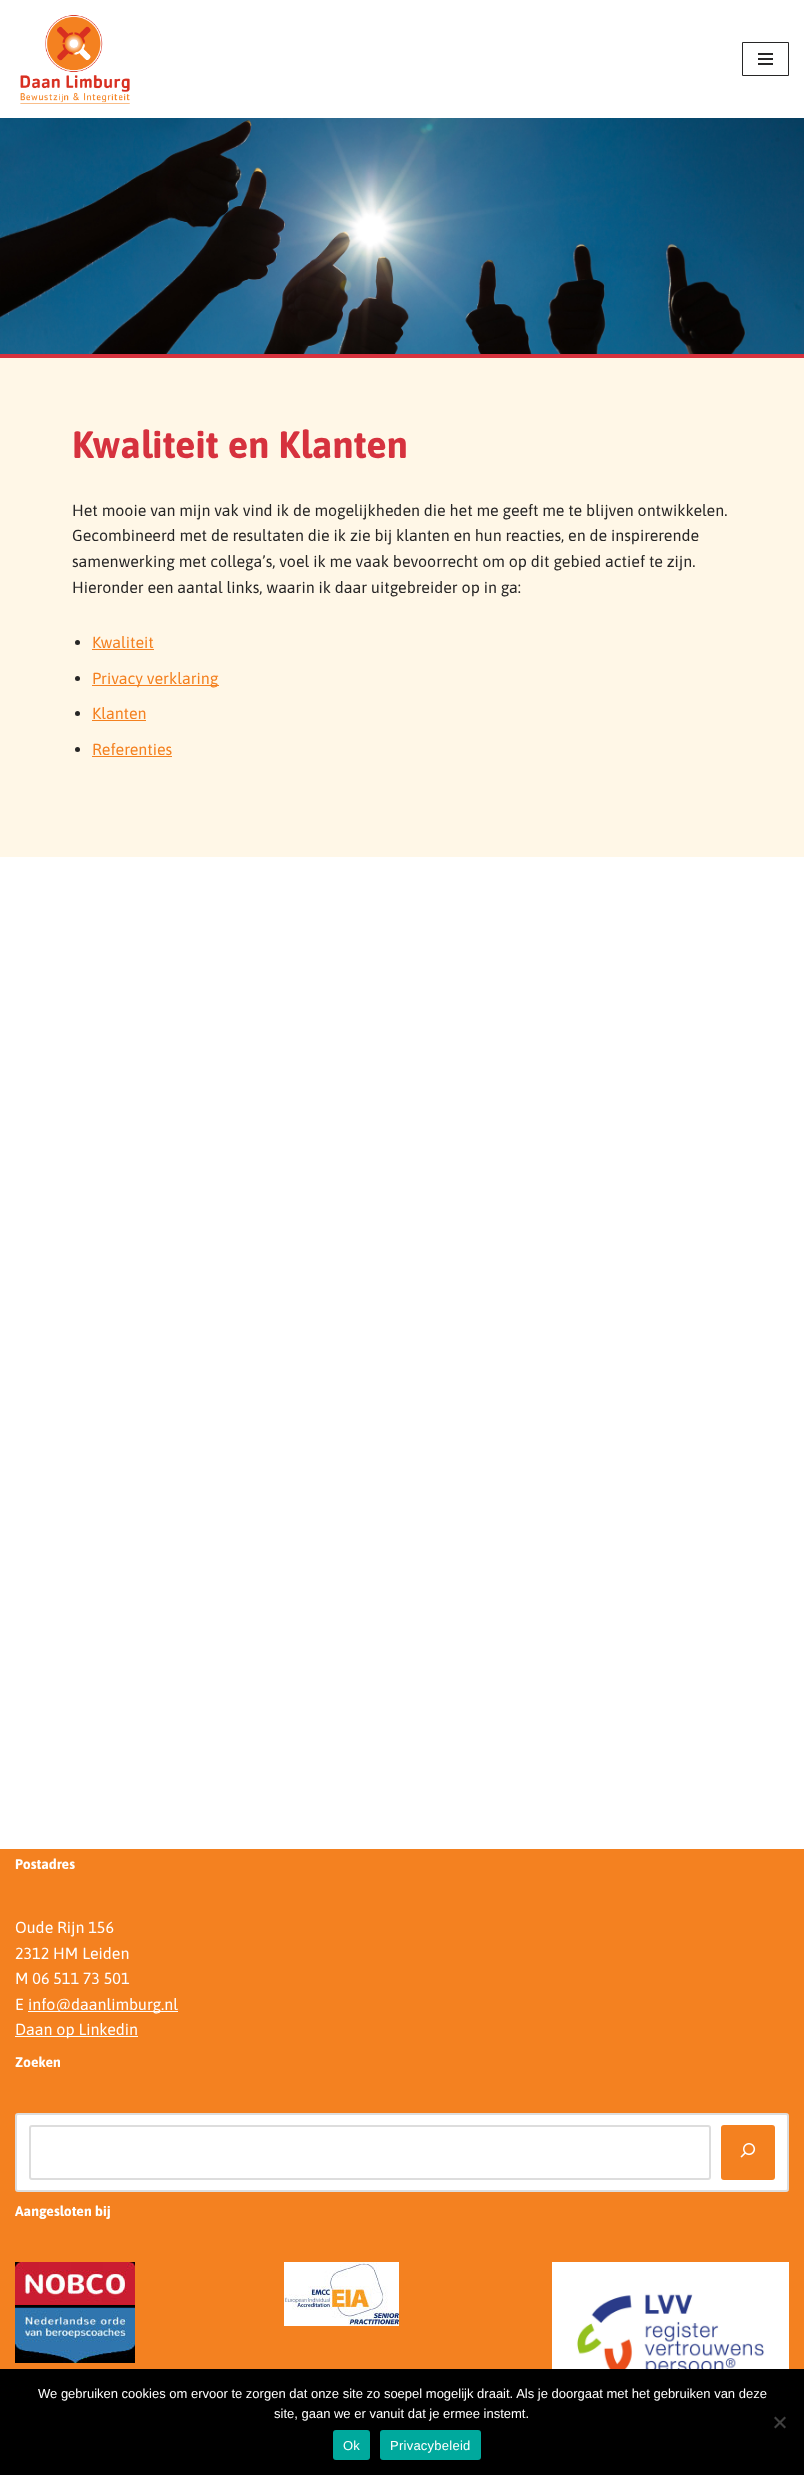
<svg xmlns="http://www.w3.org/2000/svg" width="804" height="2475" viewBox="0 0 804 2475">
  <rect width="100%" height="100%" fill="#fff"/>
  <image x="20" y="15" width="110" height="89" href="img/1.png"/>
  <path d="M742.5 42.5h46v33H742.5z" fill="none" stroke="#272626"/>
  <path d="M758 53h15v2H758z" fill="#272626"/>
  <path d="M758 58h15v2H758z" fill="#272626"/>
  <path d="M758 63h15v2H758z" fill="#272626"/>
  <image x="0" y="118" width="804" height="236" href="img/2.png"/>
  <path d="M0 354h804v4H0z" fill="#d6323e"/>
  <path d="M0 358h804v499H0z" fill="#fff7e7"/>
  <circle cx="77.5" cy="642.5" r="2.5" fill="#272626"/>
  <path d="M92 649h62v1H92z" fill="#f48120"/>
  <circle cx="77.5" cy="678.5" r="2.5" fill="#272626"/>
  <path d="M92 685h127v1H92z" fill="#f48120"/>
  <circle cx="77.5" cy="713.5" r="2.5" fill="#272626"/>
  <path d="M92 720h54v1H92z" fill="#f48120"/>
  <circle cx="77.5" cy="749.5" r="2.5" fill="#272626"/>
  <path d="M92 756h80v1H92z" fill="#f48120"/>
  <path d="M0 1849h804v520H0z" fill="#f48120"/>
  <path d="M28 2011h150v1H28z" fill="#fff"/>
  <path d="M15 2036h123v1H15z" fill="#fff"/>
  <rect x="16" y="2114" width="772" height="77" rx="2" fill="#fff" stroke="#ddd" stroke-width="2"/>
  <rect x="30" y="2126" width="680" height="53" rx="2" fill="none" stroke="#ddd" stroke-width="2"/>
  <rect x="721" y="2125" width="54" height="55" rx="3" fill="#f48120"/>
  <image x="740" y="2143" width="16" height="15" href="img/3.png"/>
  <image x="15" y="2262" width="120" height="101" href="img/4.png"/>
  <image x="284" y="2262" width="115" height="64" href="img/5.png"/>
  <image x="552" y="2262" width="237" height="107" href="img/6.png"/>
  <path d="M0 2369h804v106H0z" fill="#000"/>
  <path d="M784.5 2416.5L786 2418L775.5 2428.5L774 2427Z" fill="#404040"/>
  <path d="M774 2418L775.5 2416.5L786 2427L784.5 2428.5Z" fill="#404040"/>
  <rect x="333" y="2430" width="37" height="30" rx="3" fill="#00a99d"/>
  <rect x="380" y="2430" width="101" height="30" rx="3" fill="#00a99d"/>
  <text x="72" y="458" font-family="Asap" font-size="38" font-weight="bold" fill="#d6323e">Kwaliteit en Klanten</text>
  <g font-family="Asap" font-size="16" fill="#272626">
    <text x="72" y="516">Het mooie van mijn vak vind ik de mogelijkheden die het me geeft me te blijven ontwikkelen.</text>
    <text x="72" y="541">Gecombineerd met de resultaten die ik zie bij klanten en hun reacties, en de inspirerende</text>
    <text x="72" y="567">samenwerking met collega’s, voel ik me vaak bevoorrecht om op dit gebied actief te zijn.</text>
    <text x="72" y="593">Hieronder een aantal links, waarin ik daar uitgebreider op in ga:</text>
  </g>
  <g font-family="Asap" font-size="16" fill="#f48120">
    <text x="92" y="648">Kwaliteit</text>
    <text x="92" y="684">Privacy verklaring</text>
    <text x="92" y="719">Klanten</text>
    <text x="92" y="755">Referenties</text>
  </g>
  <text x="15" y="1869" font-family="Asap" font-size="14" font-weight="bold" fill="#fff">Postadres</text>
  <g font-family="Asap" font-size="16" fill="#fff">
    <text x="15" y="1933">Oude Rijn 156</text>
    <text x="15" y="1959">2312 HM Leiden</text>
    <text x="15" y="1984">M 06 511 73 501</text>
    <text x="15" y="2010">E</text>
    <text x="28" y="2010">info@daanlimburg.nl</text>
    <text x="15" y="2035">Daan op Linkedin</text>
  </g>
  <g font-family="Asap" font-size="14" font-weight="bold" fill="#fff">
    <text x="15" y="2067">Zoeken</text>
    <text x="15" y="2216">Aangesloten bij</text>
  </g>
  <g font-family="Liberation Sans" font-size="13" fill="#fff">
    <text x="38" y="2398">We gebruiken cookies om ervoor te zorgen dat onze site zo soepel mogelijk draait. Als je doorgaat met het gebruiken van deze</text>
    <text x="274" y="2418">site, gaan we er vanuit dat je ermee instemt.</text>
  </g>
  <g font-family="Liberation Sans" font-size="13" letter-spacing="0.25" fill="#fff">
    <text x="343" y="2450">Ok</text>
    <text x="390" y="2450">Privacybeleid</text>
  </g>
</svg>
